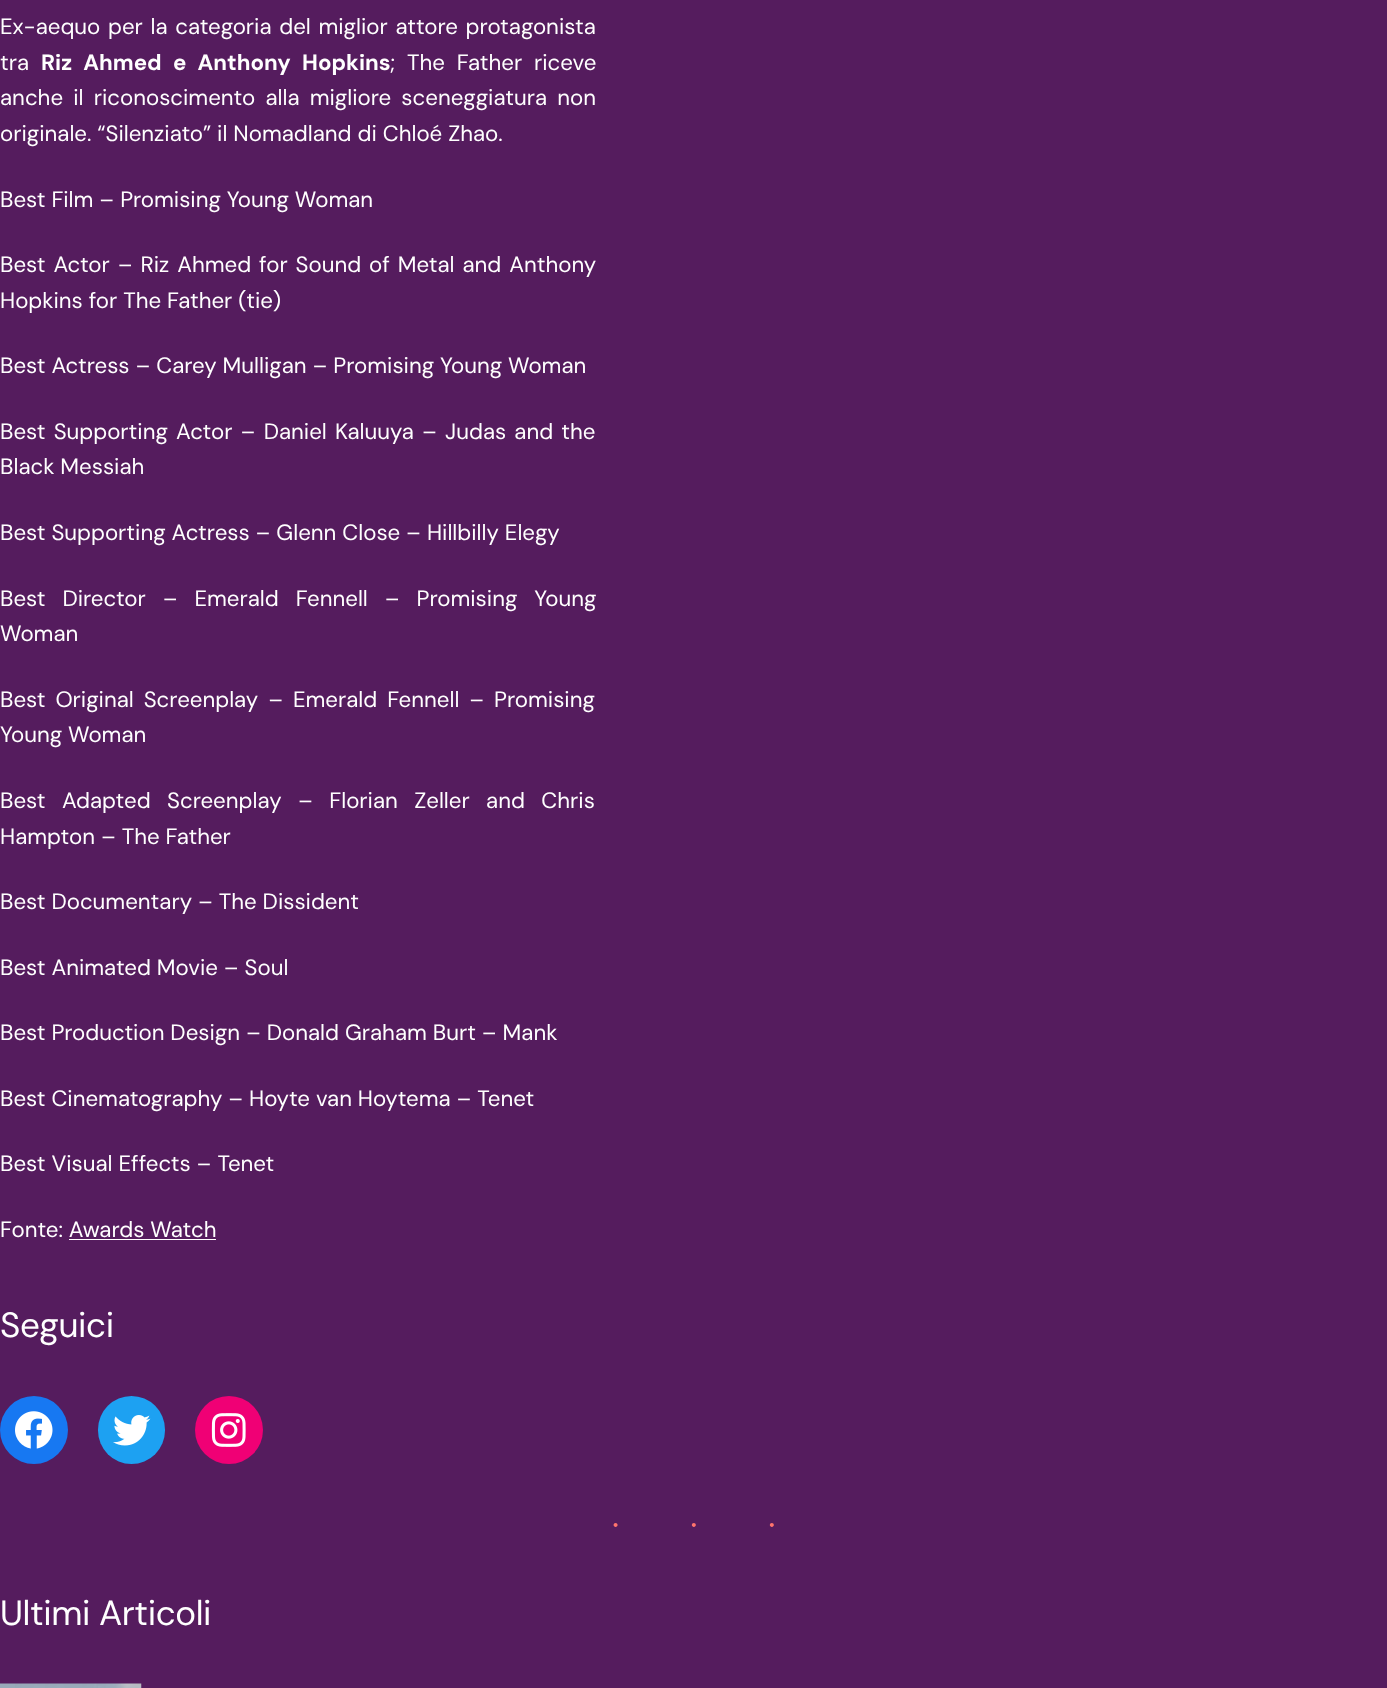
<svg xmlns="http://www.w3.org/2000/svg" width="1387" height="1688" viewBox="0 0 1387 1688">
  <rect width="100%" height="100%" fill="#551c5e"/>
  <path d="M69 1239h147v1H69z" fill="#fff"/>
  <circle cx="34" cy="1430" r="34" fill="#1778f2"/>
  <image x="15" y="1411" width="38" height="38" href="img/1.png"/>
  <rect x="98" y="1396" width="67" height="68" rx="33.5" fill="#1da1f2"/>
  <image x="113" y="1415" width="38" height="31" href="img/2.png"/>
  <circle cx="229" cy="1430" r="34" fill="#f00075"/>
  <image x="211" y="1413" width="35" height="34" href="img/3.png"/>
  <image x="0" y="1683" width="142" height="5" href="img/4.png"/>
  <g font-family="DM Sans" font-size="22.25" fill="#fff">
    <text x="0" y="34" word-spacing="1.75">Ex-aequo per la categoria del miglior attore protagonista</text>
    <text x="0" y="70">tra</text>
  </g>
  <text x="41" y="70" word-spacing="6" font-family="DM Sans" font-size="22.25" font-weight="bold" fill="#fff">Riz Ahmed e Anthony Hopkins</text>
  <g font-family="DM Sans" font-size="22.25" fill="#fff">
    <text x="390" y="70" word-spacing="6">; The Father riceve</text>
    <text x="0" y="105" word-spacing="4.25">anche il riconoscimento alla migliore sceneggiatura non</text>
    <text x="0" y="141">originale. “Silenziato” il Nomadland di Chloé Zhao.</text>
    <text x="0" y="207">Best Film – Promising Young Woman</text>
    <text x="0" y="272" word-spacing="2">Best Actor – Riz Ahmed for Sound of Metal and Anthony</text>
    <text x="0" y="308">Hopkins for The Father (tie)</text>
    <text x="0" y="373">Best Actress – Carey Mulligan – Promising Young Woman</text>
    <text x="0" y="439" word-spacing="2.25">Best Supporting Actor – Daniel Kaluuya – Judas and the</text>
    <text x="0" y="474">Black Messiah</text>
    <text x="0" y="540">Best Supporting Actress – Glenn Close – Hillbilly Elegy</text>
    <text x="0" y="606" word-spacing="11">Best Director – Emerald Fennell – Promising Young</text>
    <text x="0" y="641">Woman</text>
    <text x="0" y="707" word-spacing="4">Best Original Screenplay – Emerald Fennell – Promising</text>
    <text x="0" y="742">Young Woman</text>
    <text x="0" y="808" word-spacing="10.5">Best Adapted Screenplay – Florian Zeller and Chris</text>
    <text x="0" y="844">Hampton – The Father</text>
    <text x="0" y="909">Best Documentary – The Dissident</text>
    <text x="0" y="975">Best Animated Movie – Soul</text>
    <text x="0" y="1040">Best Production Design – Donald Graham Burt – Mank</text>
    <text x="0" y="1106">Best Cinematography – Hoyte van Hoytema – Tenet</text>
    <text x="0" y="1171">Best Visual Effects – Tenet</text>
    <text x="0" y="1237">Fonte: Awards Watch</text>
  </g>
  <text x="0" y="1337" font-family="DM Sans" font-size="35" letter-spacing="-0.4" fill="#fff">Seguici</text>
  <text x="610" y="1536" font-family="Liberation Serif" font-size="33.5" letter-spacing="67" fill="#ff746d">···</text>
  <text x="0" y="1625" font-family="DM Sans" font-size="35" letter-spacing="-0.4" fill="#fff">Ultimi Articoli</text>
</svg>
